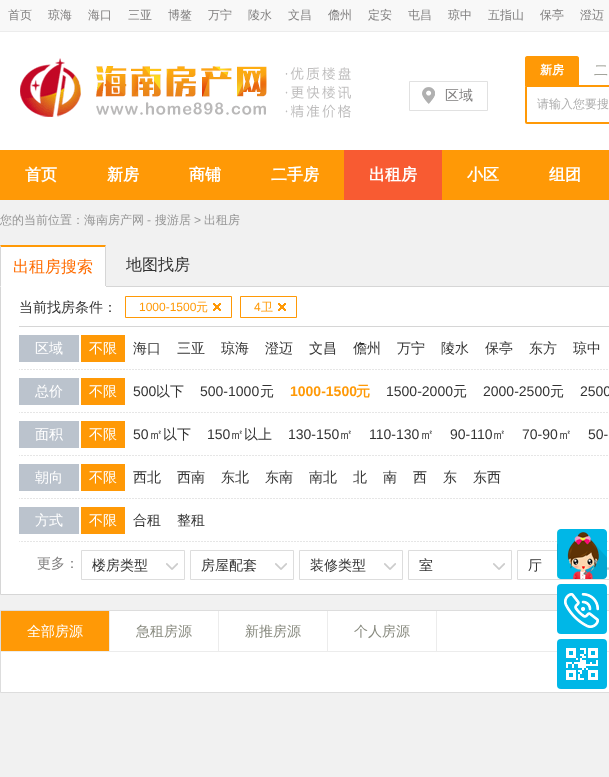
<svg xmlns="http://www.w3.org/2000/svg" width="609" height="777" viewBox="0 0 609 777">
  <rect width="100%" height="100%" fill="#fff"/>
  <path d="M0 0h609v31H0z" fill="#f8f8f8"/>
  <path d="M0 31h609v1H0z" fill="#ececec"/>
  <image x="20" y="58" width="331" height="60" href="img/1.png"/>
  <path d="M409.5 81.5h78v29H409.5z" fill="none" stroke="#e1e1e1"/>
  <image x="422" y="87" width="13" height="17" href="img/2.png"/>
  <rect x="525" y="85" width="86" height="39" rx="2" fill="#ff9906"/>
  <path d="M527 56H577C578 56 579 57 579 58V86H525V58C525 57 526 56 527 56Z" fill="#ff9906"/>
  <path d="M527 87h82v35H527z" fill="#fff"/>
  <path d="M0 150h609v50H0z" fill="#ff9906"/>
  <path d="M344 150h98v50H344z" fill="#f85b32"/>
  <path d="M0 200h609v577H0z" fill="#f1f1f1"/>
  <path d="M1 247h104v39H1z" fill="#fff"/>
  <path d="M0 245H106L105 247H1Z" fill="#ff9906"/>
  <path d="M0.5 286.5h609v308H0.5z" fill="#fff" stroke="#d6d6d6"/>
  <path d="M106 245V287L105 286V247Z" fill="#d6d6d6"/>
  <path d="M0 286h106v1H0z" fill="#fff"/>
  <path d="M0 287V245L1 247V286Z" fill="#d6d6d6"/>
  <path d="M19 326h590v1H19z" fill="#d6d6d6"/>
  <path d="M125.5 296.5h106v21H125.5z" fill="none" stroke="#ff9906"/>
  <image x="213" y="303" width="8" height="8" href="img/3.png"/>
  <path d="M240.5 296.5h56v21H240.5z" fill="none" stroke="#ff9906"/>
  <image x="278" y="303" width="8" height="8" href="img/3.png"/>
  <image x="19" y="369" width="589" height="1" href="img/4.png"/>
  <path d="M19 335h60v27H19z" fill="#bbc3cd"/>
  <path d="M81 335h44v27H81z" fill="#ff9906"/>
  <image x="19" y="412" width="589" height="1" href="img/4.png"/>
  <path d="M19 378h60v27H19z" fill="#bbc3cd"/>
  <path d="M81 378h44v27H81z" fill="#ff9906"/>
  <image x="19" y="455" width="589" height="1" href="img/4.png"/>
  <path d="M19 421h60v27H19z" fill="#bbc3cd"/>
  <path d="M81 421h44v27H81z" fill="#ff9906"/>
  <image x="19" y="498" width="589" height="1" href="img/4.png"/>
  <path d="M19 464h60v27H19z" fill="#bbc3cd"/>
  <path d="M81 464h44v27H81z" fill="#ff9906"/>
  <image x="19" y="541" width="589" height="1" href="img/4.png"/>
  <path d="M19 507h60v27H19z" fill="#bbc3cd"/>
  <path d="M81 507h44v27H81z" fill="#ff9906"/>
  <image x="166" y="563" width="12" height="7" href="img/5.png"/>
  <path d="M81.5 550.5h103v29H81.5z" fill="none" stroke="#ddd"/>
  <image x="275" y="563" width="12" height="7" href="img/5.png"/>
  <path d="M190.5 550.5h103v29H190.5z" fill="none" stroke="#ddd"/>
  <image x="384" y="563" width="12" height="7" href="img/5.png"/>
  <path d="M299.5 550.5h103v29H299.5z" fill="none" stroke="#ddd"/>
  <image x="493" y="563" width="12" height="7" href="img/5.png"/>
  <path d="M408.5 550.5h103v29H408.5z" fill="none" stroke="#ddd"/>
  <image x="607" y="567" width="2" height="3" href="img/6.png"/>
  <path d="M517.5 550.5h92v29H517.5z" fill="none" stroke="#ddd"/>
  <path d="M0.5 610.5h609v82H0.5z" fill="#fff" stroke="#ddd"/>
  <path d="M1 651h608v1H1z" fill="#ececec"/>
  <path d="M109 611h1v40H109z" fill="#ececec"/>
  <path d="M1 611h108v40H1z" fill="#ff9906"/>
  <path d="M218 611h1v40H218z" fill="#ececec"/>
  <path d="M327 611h1v40H327z" fill="#ececec"/>
  <path d="M436 611h1v40H436z" fill="#ececec"/>
  <image x="557" y="529" width="50" height="50" href="img/7.png"/>
  <rect x="557" y="584" width="50" height="50" rx="4" fill="#00b7e7"/>
  <image x="564" y="593" width="35" height="35" href="img/8.png"/>
  <rect x="557" y="639" width="50" height="50" rx="4" fill="#00b7e7"/>
  <image x="566" y="648" width="32" height="32" href="img/9.png"/>
  <g font-family="WenQuanYi Zen Hei" font-size="12" font-weight="500" fill="#807f7f">
    <text x="8" y="19">首页</text>
    <text x="48" y="19">琼海</text>
    <text x="88" y="19">海口</text>
    <text x="128" y="19">三亚</text>
    <text x="168" y="19">博鳌</text>
    <text x="208" y="19">万宁</text>
    <text x="248" y="19">陵水</text>
    <text x="288" y="19">文昌</text>
    <text x="328" y="19">儋州</text>
    <text x="368" y="19">定安</text>
    <text x="408" y="19">屯昌</text>
    <text x="448" y="19">琼中</text>
    <text x="488" y="19">五指山</text>
    <text x="540" y="19">保亭</text>
    <text x="580" y="19">澄迈</text>
  </g>
  <text x="445" y="100" font-family="WenQuanYi Zen Hei" font-size="14" font-weight="500" fill="#807f7f">区域</text>
  <text x="540" y="74" font-family="WenQuanYi Zen Hei" font-size="12" font-weight="bold" fill="#fff">新房</text>
  <text x="594" y="75" font-family="WenQuanYi Zen Hei" font-size="14" font-weight="500" fill="#888a7f">二</text>
  <text x="537" y="108" font-family="WenQuanYi Zen Hei" font-size="12" font-weight="500" fill="#aeaeae">请输入您要搜</text>
  <g font-family="WenQuanYi Zen Hei" font-size="16" font-weight="bold" fill="#fff">
    <text x="25" y="180">首页</text>
    <text x="107" y="180">新房</text>
    <text x="189" y="180">商铺</text>
    <text x="271" y="180">二手房</text>
    <text x="369" y="180">出租房</text>
    <text x="467" y="180">小区</text>
    <text x="549" y="180">组团</text>
  </g>
  <text x="0" y="224" font-family="WenQuanYi Zen Hei" font-size="12" font-weight="500" fill="#969696">您的当前位置：海南房产网</text>
  <text x="147" y="224" font-family="Liberation Sans" font-size="12" fill="#969696">-</text>
  <text x="155" y="224" font-family="WenQuanYi Zen Hei" font-size="12" font-weight="500" fill="#969696">搜游居</text>
  <text x="194" y="224" font-family="Liberation Sans" font-size="12" fill="#969696">&gt;</text>
  <text x="204" y="224" font-family="WenQuanYi Zen Hei" font-size="12" font-weight="500" fill="#969696">出租房</text>
  <text x="13" y="272" font-family="WenQuanYi Zen Hei" font-size="16" font-weight="500" fill="#ff6c00">出租房搜索</text>
  <text x="126" y="270" font-family="WenQuanYi Zen Hei" font-size="16" font-weight="500" fill="#333">地图找房</text>
  <text x="19" y="312" font-family="WenQuanYi Zen Hei" font-size="14" font-weight="500" fill="#333">当前找房条件：</text>
  <text x="139" y="311" font-family="Liberation Sans" font-size="12" fill="#ff9906">1000-1500</text>
  <text x="196" y="311" font-family="WenQuanYi Zen Hei" font-size="12" font-weight="500" fill="#ff9906">元</text>
  <text x="254" y="311" font-family="Liberation Sans" font-size="12" fill="#ff9906">4</text>
  <text x="261" y="311" font-family="WenQuanYi Zen Hei" font-size="12" font-weight="500" fill="#ff9906">卫</text>
  <g font-family="WenQuanYi Zen Hei" font-size="14" font-weight="500" fill="#fff">
    <text x="35" y="353">区域</text>
    <text x="89" y="353">不限</text>
  </g>
  <g font-family="WenQuanYi Zen Hei" font-size="14" font-weight="500" fill="#333">
    <text x="133" y="353">海口</text>
    <text x="177" y="353">三亚</text>
    <text x="221" y="353">琼海</text>
    <text x="265" y="353">澄迈</text>
    <text x="309" y="353">文昌</text>
    <text x="353" y="353">儋州</text>
    <text x="397" y="353">万宁</text>
    <text x="441" y="353">陵水</text>
    <text x="485" y="353">保亭</text>
    <text x="529" y="353">东方</text>
    <text x="573" y="353">琼中</text>
  </g>
  <g font-family="WenQuanYi Zen Hei" font-size="14" font-weight="500" fill="#fff">
    <text x="35" y="396">总价</text>
    <text x="89" y="396">不限</text>
  </g>
  <text x="133" y="396" font-family="Liberation Sans" font-size="14" fill="#333">500</text>
  <text x="156" y="396" font-family="WenQuanYi Zen Hei" font-size="14" font-weight="500" fill="#333">以下</text>
  <text x="200" y="396" font-family="Liberation Sans" font-size="14" fill="#333">500-1000</text>
  <text x="260" y="396" font-family="WenQuanYi Zen Hei" font-size="14" font-weight="500" fill="#333">元</text>
  <text x="290" y="396" font-family="Liberation Sans" font-size="14" font-weight="bold" fill="#ff9906">1000-1500</text>
  <text x="356" y="396" font-family="WenQuanYi Zen Hei" font-size="14" font-weight="bold" fill="#ff9906">元</text>
  <text x="386" y="396" font-family="Liberation Sans" font-size="14" fill="#333">1500-2000</text>
  <text x="453" y="396" font-family="WenQuanYi Zen Hei" font-size="14" font-weight="500" fill="#333">元</text>
  <text x="483" y="396" font-family="Liberation Sans" font-size="14" fill="#333">2000-2500</text>
  <text x="550" y="396" font-family="WenQuanYi Zen Hei" font-size="14" font-weight="500" fill="#333">元</text>
  <text x="580" y="396" font-family="Liberation Sans" font-size="14" fill="#333">2500</text>
  <g font-family="WenQuanYi Zen Hei" font-size="14" font-weight="500" fill="#fff">
    <text x="35" y="439">面积</text>
    <text x="89" y="439">不限</text>
  </g>
  <text x="133" y="439" font-family="Liberation Sans" font-size="14" fill="#333">50</text>
  <text x="149" y="439" font-family="WenQuanYi Zen Hei" font-size="14" font-weight="500" fill="#333">㎡以下</text>
  <text x="207" y="439" font-family="Liberation Sans" font-size="14" fill="#333">150</text>
  <text x="230" y="439" font-family="WenQuanYi Zen Hei" font-size="14" font-weight="500" fill="#333">㎡以上</text>
  <text x="288" y="439" font-family="Liberation Sans" font-size="14" fill="#333">130-150</text>
  <text x="339" y="439" font-family="WenQuanYi Zen Hei" font-size="14" font-weight="500" fill="#333">㎡</text>
  <text x="369" y="439" font-family="Liberation Sans" font-size="14" fill="#333">110-130</text>
  <text x="420" y="439" font-family="WenQuanYi Zen Hei" font-size="14" font-weight="500" fill="#333">㎡</text>
  <text x="450" y="439" font-family="Liberation Sans" font-size="14" fill="#333">90-110</text>
  <text x="492" y="439" font-family="WenQuanYi Zen Hei" font-size="14" font-weight="500" fill="#333">㎡</text>
  <text x="522" y="439" font-family="Liberation Sans" font-size="14" fill="#333">70-90</text>
  <text x="558" y="439" font-family="WenQuanYi Zen Hei" font-size="14" font-weight="500" fill="#333">㎡</text>
  <text x="588" y="439" font-family="Liberation Sans" font-size="14" fill="#333">50-</text>
  <g font-family="WenQuanYi Zen Hei" font-size="14" font-weight="500" fill="#fff">
    <text x="35" y="482">朝向</text>
    <text x="89" y="482">不限</text>
  </g>
  <g font-family="WenQuanYi Zen Hei" font-size="14" font-weight="500" fill="#333">
    <text x="133" y="482">西北</text>
    <text x="177" y="482">西南</text>
    <text x="221" y="482">东北</text>
    <text x="265" y="482">东南</text>
    <text x="309" y="482">南北</text>
    <text x="353" y="482">北</text>
    <text x="383" y="482">南</text>
    <text x="413" y="482">西</text>
    <text x="443" y="482">东</text>
    <text x="473" y="482">东西</text>
  </g>
  <g font-family="WenQuanYi Zen Hei" font-size="14" font-weight="500" fill="#fff">
    <text x="35" y="525">方式</text>
    <text x="89" y="525">不限</text>
  </g>
  <g font-family="WenQuanYi Zen Hei" font-size="14" font-weight="500" fill="#333">
    <text x="133" y="525">合租</text>
    <text x="177" y="525">整租</text>
  </g>
  <text x="37" y="568" font-family="WenQuanYi Zen Hei" font-size="14" font-weight="500" fill="#807f7f">更多：</text>
  <g font-family="WenQuanYi Zen Hei" font-size="14" font-weight="500" fill="#333">
    <text x="92" y="570">楼房类型</text>
    <text x="201" y="570">房屋配套</text>
    <text x="310" y="570">装修类型</text>
    <text x="419" y="570">室</text>
    <text x="528" y="570">厅</text>
  </g>
  <text x="27" y="636" font-family="WenQuanYi Zen Hei" font-size="14" font-weight="500" fill="#fff">全部房源</text>
  <g font-family="WenQuanYi Zen Hei" font-size="14" font-weight="500" fill="#888a7f">
    <text x="136" y="636">急租房源</text>
    <text x="245" y="636">新推房源</text>
    <text x="354" y="636">个人房源</text>
  </g>
</svg>
